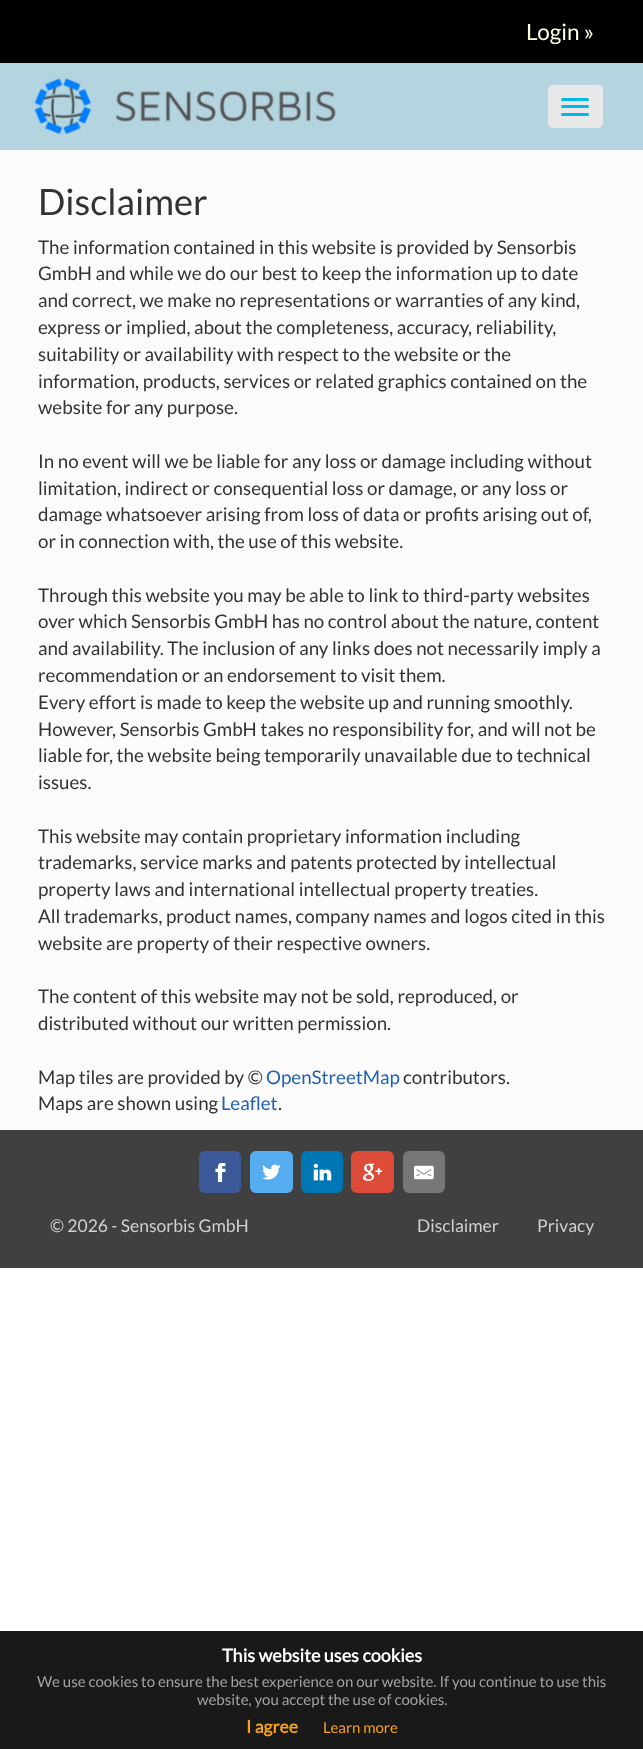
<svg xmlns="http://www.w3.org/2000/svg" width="643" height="1749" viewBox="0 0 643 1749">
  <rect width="100%" height="100%" fill="#fff"/>
  <path d="M0 0h643v63H0z" fill="#000"/>
  <path d="M0 63h643v87H0z" fill="#b4d4e0"/>
  <image x="34" y="78" width="302" height="56" href="img/1.png"/>
  <rect x="548" y="85" width="55" height="43" rx="5" fill="#e8e8e8"/>
  <rect x="561" y="98" width="28" height="3" rx="1.5" fill="#00b8e8"/>
  <rect x="561" y="105" width="28" height="3" rx="1.5" fill="#00b8e8"/>
  <rect x="561" y="113" width="28" height="3" rx="1.5" fill="#00b8e8"/>
  <path d="M0 150h643v980H0z" fill="#fbfbfb"/>
  <path d="M0 1130h643v138H0z" fill="#404040"/>
  <rect x="199" y="1151" width="42" height="42" rx="6" fill="#3b5998"/>
  <image x="215" y="1163" width="11" height="20" href="img/2.png"/>
  <rect x="250" y="1151" width="43" height="42" rx="6" fill="#55acee"/>
  <image x="262" y="1164" width="19" height="16" href="img/3.png"/>
  <rect x="301" y="1151" width="42" height="42" rx="6" fill="#0077b5"/>
  <image x="313" y="1163" width="19" height="18" href="img/4.png"/>
  <rect x="351" y="1151" width="43" height="42" rx="6" fill="#dd4b39"/>
  <image x="363" y="1163" width="20" height="18" href="img/5.png"/>
  <rect x="403" y="1151" width="42" height="42" rx="6" fill="#777"/>
  <image x="414" y="1165" width="20" height="15" href="img/6.png"/>
  <path d="M0 1631h643v118H0z" fill="#191919"/>
  <text x="526" y="40" font-family="Lato" font-size="22.5" fill="#ffffe0">Login »</text>
  <text x="38" y="215" font-family="Lato" font-size="36.25" fill="#333">Disclaimer</text>
  <g font-family="Lato" font-size="18.75" fill="#333">
    <text x="38" y="254">The information contained in this website is provided by Sensorbis</text>
    <text x="38" y="280">GmbH and while we do our best to keep the information up to date</text>
    <text x="38" y="307">and correct, we make no representations or warranties of any kind,</text>
    <text x="38" y="334">express or implied, about the completeness, accuracy, reliability,</text>
    <text x="38" y="361">suitability or availability with respect to the website or the</text>
    <text x="38" y="388">information, products, services or related graphics contained on the</text>
    <text x="38" y="414">website for any purpose.</text>
    <text x="38" y="468">In no event will we be liable for any loss or damage including without</text>
    <text x="38" y="495">limitation, indirect or consequential loss or damage, or any loss or</text>
    <text x="38" y="521">damage whatsoever arising from loss of data or profits arising out of,</text>
    <text x="38" y="548">or in connection with, the use of this website.</text>
    <text x="38" y="602">Through this website you may be able to link to third-party websites</text>
    <text x="38" y="628">over which Sensorbis GmbH has no control about the nature, content</text>
    <text x="38" y="655">and availability. The inclusion of any links does not necessarily imply a</text>
    <text x="38" y="682">recommendation or an endorsement to visit them.</text>
    <text x="38" y="709">Every effort is made to keep the website up and running smoothly.</text>
    <text x="38" y="736">However, Sensorbis GmbH takes no responsibility for, and will not be</text>
    <text x="38" y="762">liable for, the website being temporarily unavailable due to technical</text>
    <text x="38" y="789">issues.</text>
    <text x="38" y="843">This website may contain proprietary information including</text>
    <text x="38" y="869">trademarks, service marks and patents protected by intellectual</text>
    <text x="38" y="896">property laws and international intellectual property treaties.</text>
    <text x="38" y="923">All trademarks, product names, company names and logos cited in this</text>
    <text x="38" y="950">website are property of their respective owners.</text>
    <text x="38" y="1003">The content of this website may not be sold, reproduced, or</text>
    <text x="38" y="1030">distributed without our written permission.</text>
    <text x="38" y="1084">Map tiles are provided by ©</text>
  </g>
  <text x="266" y="1084" font-family="Lato" font-size="18.75" fill="#2060b0">OpenStreetMap</text>
  <g font-family="Lato" font-size="18.75" fill="#333">
    <text x="403" y="1084">contributors.</text>
    <text x="38" y="1110">Maps are shown using</text>
  </g>
  <text x="221" y="1110" font-family="Lato" font-size="18.75" fill="#2060b0">Leaflet</text>
  <text x="278" y="1110" font-family="Lato" font-size="18.75" fill="#333">.</text>
  <g font-family="Lato" font-size="17.5" fill="#d0d0d0">
    <text x="50" y="1232">© 2026 - Sensorbis GmbH</text>
    <text x="417" y="1232">Disclaimer</text>
    <text x="537" y="1232">Privacy</text>
  </g>
  <text x="222" y="1662" font-family="Lato" font-size="18" font-weight="bold" fill="#fff">This website uses cookies</text>
  <g font-family="Lato" font-size="15" fill="#a2a2a2">
    <text x="37" y="1687">We use cookies to ensure the best experience on our website. If you continue to use this</text>
    <text x="197" y="1705">website, you accept the use of cookies.</text>
  </g>
  <text x="246" y="1733" font-family="Lato" font-size="17.5" font-weight="bold" fill="#f6a21d">I agree</text>
  <text x="323" y="1733" font-family="Lato" font-size="15" fill="#f6a21d">Learn more</text>
</svg>
